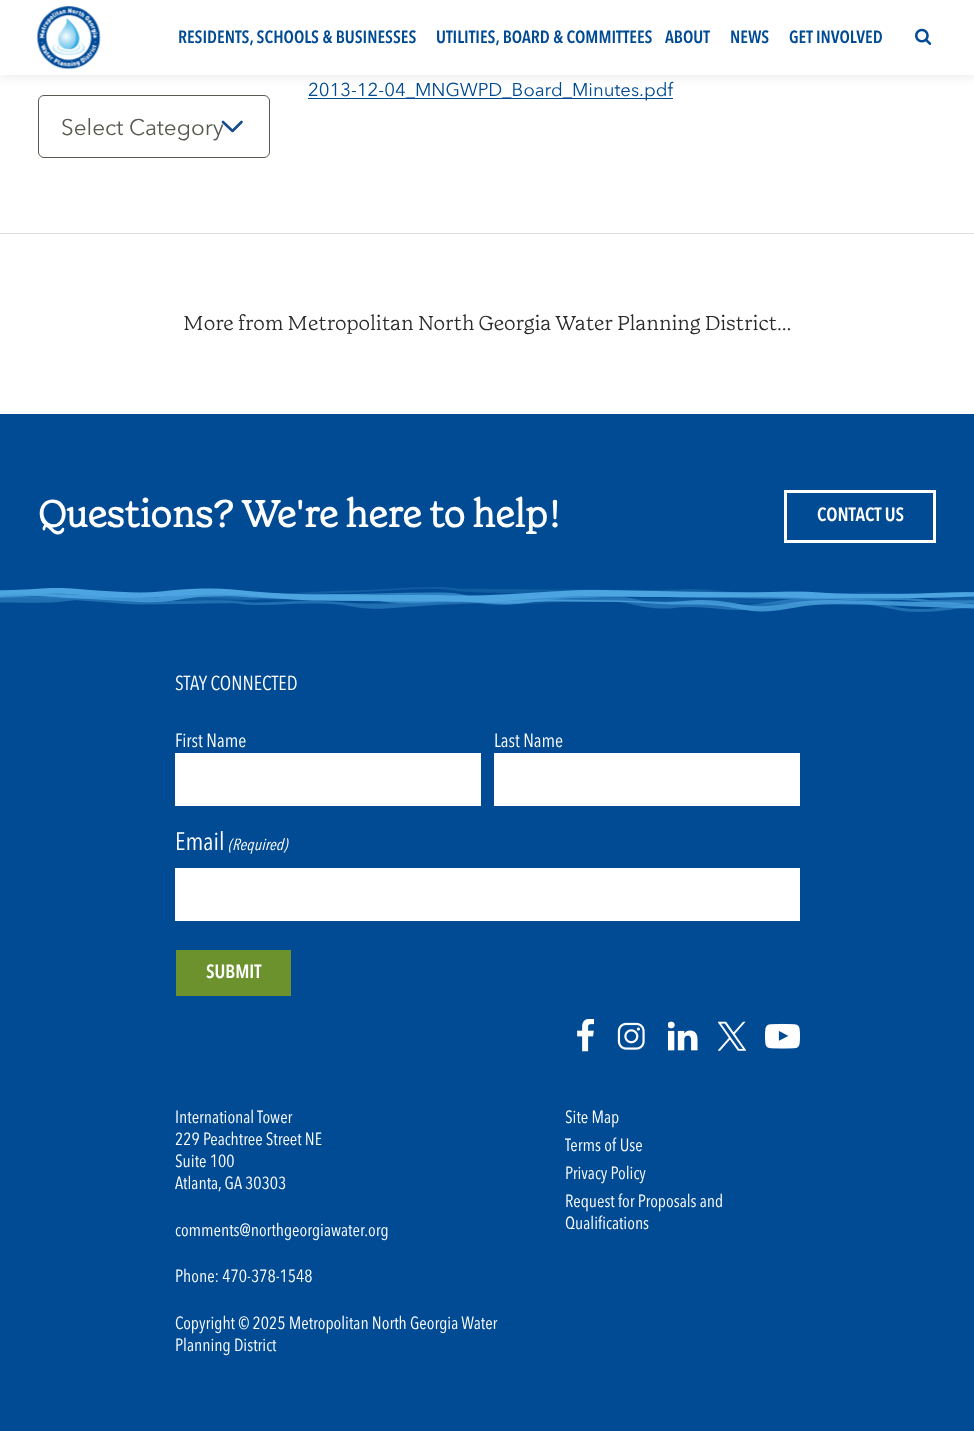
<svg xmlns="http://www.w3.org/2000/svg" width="974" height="1431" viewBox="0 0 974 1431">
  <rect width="100%" height="100%" fill="#fff"/>
  <path d="M0 0h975v75H0z" fill="#0000001f" filter="blur(6px)"/>
  <path d="M0 0h974v75H0z" fill="#fff"/>
  <image x="37" y="6" width="64" height="64" href="img/1.png"/>
  <image x="915" y="28" width="16" height="17" href="img/2.png"/>
  <path d="M308 98h365v1H308z" fill="#004b93"/>
  <path d="M241.5 122L232.5 131L223 122" fill="none" stroke="#184c8e" stroke-width="2.6" stroke-linecap="round" stroke-linejoin="round"/>
  <rect x="38.5" y="95.5" width="231" height="62" rx="5.5" fill="none" stroke="#585a50"/>
  <path d="M0 233h974v1H0z" fill="#ddd"/>
  <path d="M0 414h974v1017H0z" fill="#004b93"/>
  <path d="M785.5 491.5h149v50H785.5z" fill="none" stroke="#fff" stroke-width="3"/>
  <image x="0" y="594" width="974" height="11" href="img/7.png"/>
  <image x="0" y="587" width="974" height="14" href="img/3.png"/>
  <image x="0" y="596" width="974" height="16" href="img/8.png"/>
  <image x="0" y="592" width="974" height="13" href="img/5.png"/>
  <image x="0" y="593" width="974" height="19" href="img/6.png"/>
  <image x="0" y="588" width="974" height="14" href="img/4.png"/>
  <path d="M175 753h306v53H175z" fill="#fff"/>
  <path d="M494 753h306v53H494z" fill="#fff"/>
  <path d="M175 868h625v53H175z" fill="#fff"/>
  <path d="M176 950h115v46H176z" fill="#6b922c"/>
  <image x="577" y="1019" width="17" height="33" href="img/9.png"/>
  <image x="617" y="1022" width="28" height="28" href="img/10.png"/>
  <image x="668" y="1021" width="30" height="30" href="img/11.png"/>
  <image x="718" y="1021" width="28" height="30" href="img/12.png"/>
  <image x="765" y="1023" width="35" height="26" href="img/13.png"/>
  <g font-family="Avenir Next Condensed" font-size="17.5" font-weight="600" fill="#004b93">
    <text x="178" y="43">RESIDENTS, SCHOOLS &amp; BUSINESSES</text>
    <text x="436" y="43">UTILITIES, BOARD &amp; COMMITTEES</text>
    <text x="665" y="43">ABOUT</text>
    <text x="730" y="43">NEWS</text>
    <text x="789" y="43">GET INVOLVED</text>
  </g>
  <text x="308" y="96" font-family="Avenir Next" font-size="18.5" fill="#004b93">2013-12-04_MNGWPD_Board_Minutes.pdf</text>
  <text x="61" y="135" font-family="Avenir Next" font-size="22.5" fill="#585a50">Select Category</text>
  <text x="183" y="330" font-family="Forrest" font-size="20" font-weight="300" fill="#2a2a2a">More from Metropolitan North Georgia Water Planning District...</text>
  <text x="38" y="527" font-family="Forrest" font-size="37" font-weight="bold" fill="#fff">Questions? We're here to help!</text>
  <text x="817" y="521" font-family="Avenir Next Condensed" font-size="19" font-weight="600" fill="#fff">CONTACT US</text>
  <text x="175" y="690" font-family="Avenir Next Condensed" font-size="20" fill="#fff">STAY CONNECTED</text>
  <g font-family="Avenir Next Condensed" font-size="19" fill="#fff">
    <text x="175" y="747">First Name</text>
    <text x="494" y="747">Last Name</text>
  </g>
  <text x="175" y="850" font-family="Avenir Next Condensed" font-size="25" fill="#fff">Email</text>
  <text x="228" y="850" font-family="Avenir Next Condensed" font-size="16" font-style="italic" fill="#fff">(Required)</text>
  <text x="206" y="978" font-family="Avenir Next Condensed" font-size="19" font-weight="600" fill="#fff">SUBMIT</text>
  <g font-family="Avenir Next Condensed" font-size="17.5" fill="#fff">
    <text x="175" y="1123">International Tower</text>
    <text x="175" y="1145">229 Peachtree Street NE</text>
    <text x="175" y="1167">Suite 100</text>
    <text x="175" y="1189">Atlanta, GA 30303</text>
    <text x="175" y="1236">comments@northgeorgiawater.org</text>
    <text x="175" y="1282">Phone: 470-378-1548</text>
    <text x="175" y="1329">Copyright © 2025 Metropolitan North Georgia Water</text>
    <text x="175" y="1351">Planning District</text>
    <text x="565" y="1123">Site Map</text>
    <text x="565" y="1151">Terms of Use</text>
    <text x="565" y="1179">Privacy Policy</text>
    <text x="565" y="1207">Request for Proposals and</text>
    <text x="565" y="1229">Qualifications</text>
  </g>
</svg>
